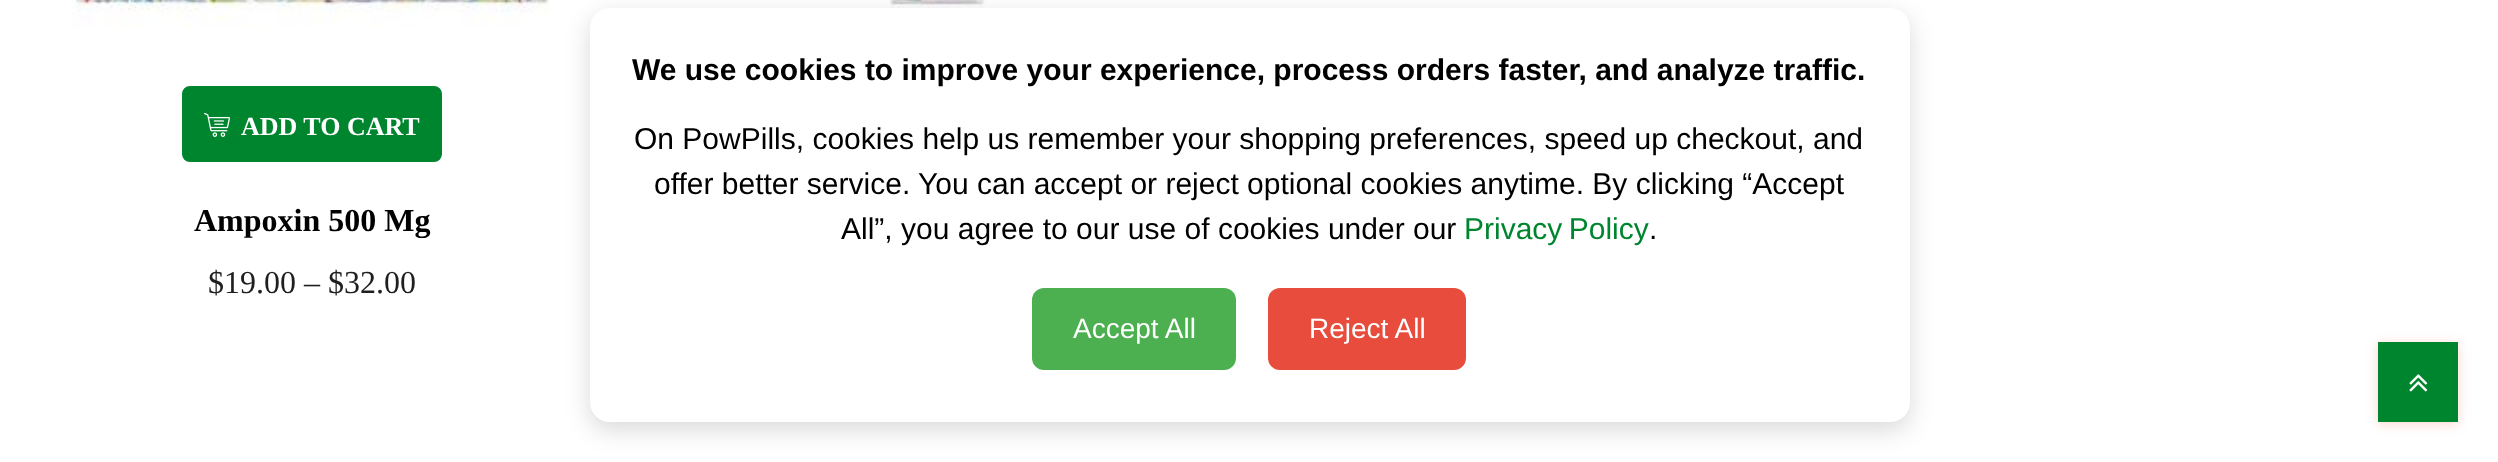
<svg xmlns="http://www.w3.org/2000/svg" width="2498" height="462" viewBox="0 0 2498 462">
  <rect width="100%" height="100%" fill="#fff"/>
  <image x="889" y="0" width="96" height="8" href="img/1.png"/>
  <image x="71" y="0" width="479" height="28" href="img/2.png"/>
  <rect x="183" y="87" width="258" height="74" rx="7" fill="#00852f" stroke="#00852f" stroke-width="2"/>
  <image x="204" y="112" width="26" height="25" href="img/3.png"/>
  <rect x="590" y="16" width="1320" height="414" rx="20" fill="#00000026" filter="blur(12px)"/>
  <rect x="590" y="8" width="1320" height="414" rx="20" fill="#fff"/>
  <rect x="1032" y="288" width="204" height="82" rx="12" fill="#4caf50"/>
  <rect x="1268" y="288" width="198" height="82" rx="12" fill="#e74c3c"/>
  <path d="M2378 344h80v80H2378z" fill="#f26c4f47" filter="blur(6px)"/>
  <path d="M2378 342h80v80H2378z" fill="#00852f"/>
  <image x="2409" y="374" width="19" height="18" href="img/4.png"/>
  <text x="241" y="135" font-family="Liberation Serif" font-size="26" font-weight="bold" fill="#fff">ADD TO CART</text>
  <text x="194" y="231" font-family="Liberation Serif" font-size="32" font-weight="bold" fill="#000">Ampoxin 500 Mg</text>
  <text x="208" y="293" font-family="Liberation Serif" font-size="32" fill="#1f1f1f">$19.00 – $32.00</text>
  <text x="632" y="80" font-family="Liberation Sans" font-size="30" font-weight="bold" fill="#000">We use cookies to improve your experience, process orders faster, and analyze traffic.</text>
  <g font-family="Liberation Sans" font-size="30" fill="#000">
    <text x="634" y="149">On PowPills, cookies help us remember your shopping preferences, speed up checkout, and</text>
    <text x="654" y="194">offer better service. You can accept or reject optional cookies anytime. By clicking “Accept</text>
    <text x="841" y="239">All”, you agree to our use of cookies under our</text>
  </g>
  <text x="1464" y="239" word-spacing="-2" font-family="Liberation Sans" font-size="30" fill="#00852f">Privacy Policy</text>
  <text x="1649" y="239" font-family="Liberation Sans" font-size="30" fill="#000">.</text>
  <g font-family="Liberation Sans" font-size="28" fill="#fff">
    <text x="1073" y="338">Accept All</text>
    <text x="1309" y="338">Reject All</text>
  </g>
</svg>
